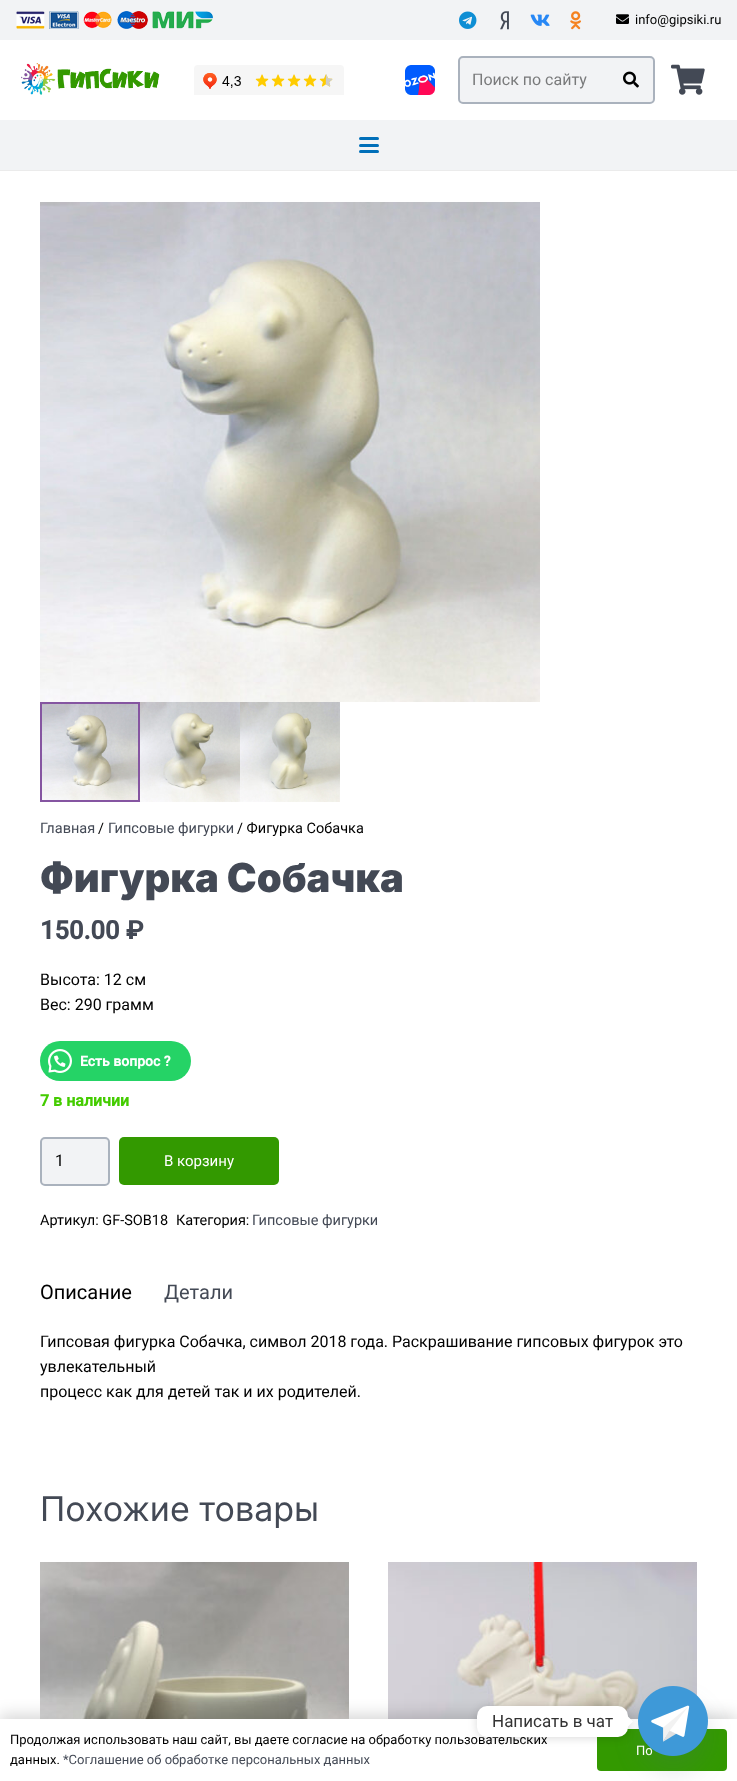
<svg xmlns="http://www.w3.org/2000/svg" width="737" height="1781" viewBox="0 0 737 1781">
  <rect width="100%" height="100%" fill="#fff"/>
  <path d="M0 0h737v40H0z" fill="#f2f3f5"/>
  <image x="16" y="11" width="197" height="18" href="img/1.png"/>
  <image x="459" y="11" width="18" height="18" href="img/2.png"/>
  <image x="500" y="11" width="9" height="19" href="img/3.png"/>
  <image x="530" y="14" width="20" height="12" href="img/4.png"/>
  <image x="570" y="11" width="11" height="19" href="img/5.png"/>
  <image x="616" y="14" width="13" height="10" href="img/6.png"/>
  <image x="21" y="63" width="139" height="32" href="img/7.png"/>
  <image x="194" y="65" width="150" height="30" href="img/8.png"/>
  <image x="405" y="65" width="30" height="30" href="img/9.png"/>
  <rect x="459" y="57" width="195" height="46" rx="4" fill="#f2f3f5" stroke="#aab2bd" stroke-width="2"/>
  <image x="623" y="71" width="16" height="17" href="img/10.png"/>
  <image x="671" y="64" width="34" height="31" href="img/11.png"/>
  <path d="M0 170h737v1H0z" fill="#ebebeb"/>
  <path d="M0 120h737v50H0z" fill="#f2f3f5"/>
  <rect x="359" y="144" width="20" height="3" rx="1.5" fill="#006fb9"/>
  <rect x="359" y="137" width="20" height="3" rx="1.5" fill="#006fb9"/>
  <rect x="359" y="150" width="20" height="3" rx="1.5" fill="#006fb9"/>
  <image x="40" y="202" width="500" height="500" href="img/12.png"/>
  <path d="M41 703h98v98H41z" fill="none" stroke="#8555a1" stroke-width="2"/>
  <image x="42" y="704" width="96" height="96" href="img/13.png"/>
  <image x="140" y="702" width="100" height="100" href="img/14.png"/>
  <image x="240" y="702" width="100" height="100" href="img/15.png"/>
  <rect x="40" y="1041" width="151" height="40" rx="20" fill="#25d366"/>
  <image x="48" y="1049" width="24" height="24" href="img/16.png"/>
  <rect x="41" y="1138" width="68" height="47" rx="4" fill="#f2f3f5" stroke="#aab2bd" stroke-width="2"/>
  <rect x="119" y="1137" width="160" height="48" rx="5" fill="#390"/>
  <image x="40" y="1562" width="309" height="157" href="img/17.png"/>
  <image x="388" y="1562" width="309" height="157" href="img/18.png"/>
  <path d="M0 1714h737v62H0z" fill="#00000026" filter="blur(7.5px)"/>
  <path d="M0 1719h737v62H0z" fill="#fff"/>
  <rect x="597" y="1729" width="130" height="42" rx="4" fill="#390"/>
  <rect x="638" y="1702" width="70" height="70" rx="35" fill="#49687e29" filter="blur(12px)"/>
  <text x="635" y="24" font-family="Roboto" font-size="13" fill="#000">info@gipsiki.ru</text>
  <text x="472" y="85" font-family="Roboto" font-size="16" fill="#797a7b">Поиск по сайту</text>
  <text x="40" y="833" font-family="Roboto" font-size="14.5" fill="#434955">Главная</text>
  <text x="98" y="833" font-family="Roboto" font-size="14.5" fill="#000">/</text>
  <text x="108" y="833" font-family="Roboto" font-size="14.5" fill="#434955">Гипсовые фигурки</text>
  <text x="237" y="833" font-family="Roboto" font-size="14.5" fill="#000">/ Фигурка Собачка</text>
  <text x="40" y="892" font-family="Inter" font-size="40" font-weight="900" fill="#434955">Фигурка Собачка</text>
  <text x="40" y="939" font-family="Roboto" font-size="25.5" font-weight="bold" fill="#434955">150.00 ₽</text>
  <g font-family="Roboto" font-size="16" fill="#000">
    <text x="40" y="985">Высота: 12 см</text>
    <text x="40" y="1010">Вес: 290 грамм</text>
  </g>
  <text x="80" y="1066" font-family="Roboto" font-size="14" font-weight="bold" fill="#fff">Есть вопрос ?</text>
  <text x="40" y="1106" font-family="Roboto" font-size="16" font-weight="bold" fill="#4c0">7 в наличии</text>
  <text x="55" y="1166" font-family="Roboto" font-size="16" fill="#000">1</text>
  <text x="164" y="1166" font-family="Roboto" font-size="15" fill="#fff">В корзину</text>
  <g font-family="Roboto" font-size="14.5" fill="#000">
    <text x="40" y="1225">Артикул: GF-SOB18</text>
    <text x="176" y="1225">Категория:</text>
  </g>
  <text x="252" y="1225" font-family="Roboto" font-size="14.5" fill="#434955">Гипсовые фигурки</text>
  <text x="40" y="1299" font-family="Roboto" font-size="20" fill="#000">Описание</text>
  <text x="164" y="1299" font-family="Roboto" font-size="20" fill="#434955">Детали</text>
  <g font-family="Roboto" font-size="16" fill="#000">
    <text x="40" y="1347">Гипсовая фигурка Собачка, символ 2018 года. Раскрашивание гипсовых фигурок это</text>
    <text x="40" y="1372">увлекательный</text>
    <text x="40" y="1397">процесс как для детей так и их родителей.</text>
  </g>
  <text x="40" y="1521" font-family="Inter" font-size="34" fill="#434955">Похожие товары</text>
  <g font-family="Roboto" font-size="13" fill="#000">
    <text x="10" y="1744">Продолжая использовать наш сайт, вы даете согласие на обработку пользовательских</text>
    <text x="10" y="1764">данных.</text>
  </g>
  <text x="63" y="1764" font-family="Roboto" font-size="13" fill="#434955">*Соглашение об обработке персональных данных</text>
  <text x="636" y="1755" font-family="Roboto" font-size="13" fill="#fff">По</text>
  <image x="638" y="1686" width="70" height="70" href="img/19.png"/>
  <rect x="477" y="1707" width="151" height="31" rx="10" fill="#00000026" filter="blur(4px)"/>
  <path d="M628 1726.5V1716.5L633 1721.5Z" fill="#fff"/>
  <rect x="477" y="1706" width="151" height="31" rx="10" fill="#fff"/>
  <text x="492" y="1727" font-family="Roboto" font-size="17" fill="#333">Написать в чат</text>
</svg>
